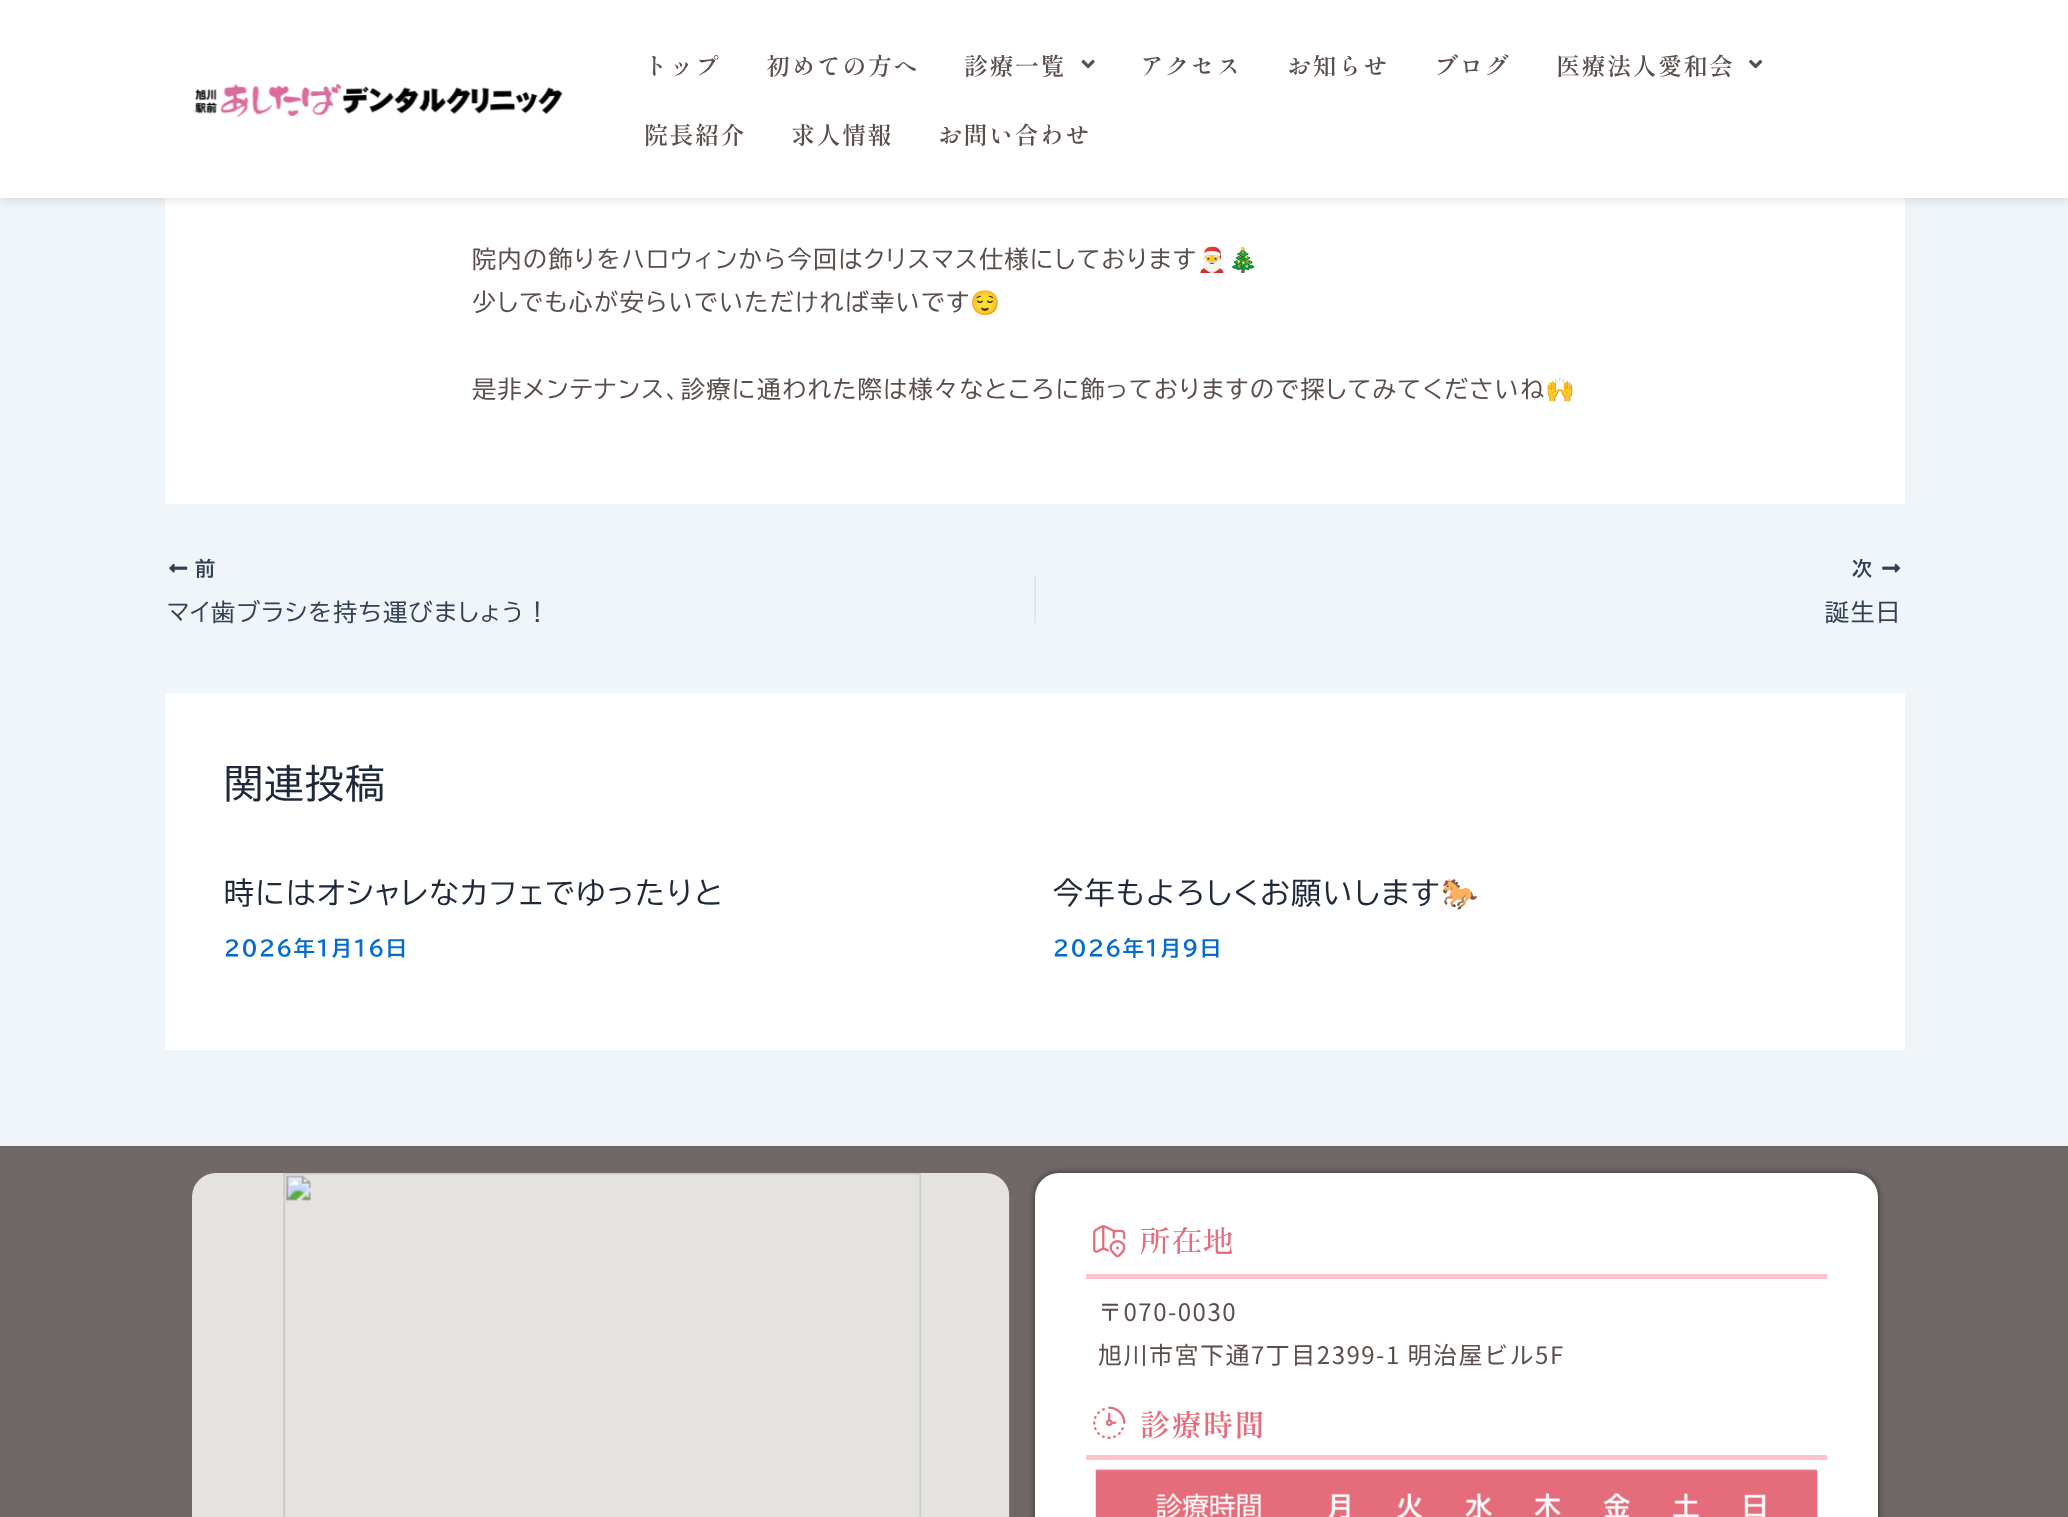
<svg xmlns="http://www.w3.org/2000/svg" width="2068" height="1517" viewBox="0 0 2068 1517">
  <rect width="100%" height="100%" fill="#f0f5fa"/>
  <path d="M165 198h1740v306H165z" fill="#fff"/>
  <path d="M0 3h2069v198H0z" fill="#0000001a" filter="blur(4px)"/>
  <path d="M0 0h2068v198H0z" fill="#fff"/>
  <image x="194" y="84" width="369" height="34" href="img/1.png"/>
  <image x="1081" y="59" width="14" height="10" href="img/2.png"/>
  <image x="1749" y="59" width="14" height="10" href="img/3.png"/>
  <image x="169" y="563" width="19" height="10" href="img/4.png"/>
  <path d="M1034 576h2v47H1034z" fill="#e1e8ed"/>
  <image x="1882" y="563" width="19" height="10" href="img/5.png"/>
  <path d="M165 693h1740v357H165z" fill="#fff"/>
  <path d="M0 1146h2068v371H0z" fill="#706767"/>
  <image x="192" y="1173" width="818" height="344" href="img/6.png"/>
  <rect x="1035" y="1173" width="843" height="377" rx="24" fill="#00000080" filter="blur(3px)"/>
  <rect x="1035" y="1173" width="843" height="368" rx="24" fill="#fff"/>
  <image x="1093" y="1225" width="33" height="33" href="img/7.png"/>
  <path d="M1086 1274h741v5H1086z" fill="#ffc3ca"/>
  <image x="1093" y="1406" width="33" height="33" href="img/8.png"/>
  <path d="M1086 1455h741v5H1086z" fill="#ffc3ca"/>
  <image x="1095" y="1469" width="723" height="48" href="img/9.png"/>
  <g font-family="Shippori Mincho" font-size="24" font-weight="600" letter-spacing="1.5" fill="#5a4e4b">
    <text x="644" y="75">トップ</text>
    <text x="766" y="75">初めての方へ</text>
    <text x="964" y="75">診療一覧</text>
    <text x="1140" y="75">アクセス</text>
    <text x="1287" y="75">お知らせ</text>
    <text x="1434" y="75">ブログ</text>
    <text x="1556" y="75">医療法人愛和会</text>
    <text x="644" y="144">院長紹介</text>
    <text x="791" y="144">求人情報</text>
    <text x="938" y="144">お問い合わせ</text>
  </g>
  <text x="472" y="268" font-family="BIZ UDPGothic" font-size="24" letter-spacing="1.5" fill="#5a4e4b">院内の飾りをハロウィンから今回はクリスマス仕様にしております</text>
  <text x="1197" y="268" font-family="Noto Color Emoji" font-size="24" letter-spacing="1.5" fill="#5a4e4b">🎅🎄</text>
  <text x="472" y="311" font-family="BIZ UDPGothic" font-size="24" letter-spacing="1.5" fill="#5a4e4b">少しでも心が安らいでいただければ幸いです</text>
  <text x="970" y="311" font-family="Noto Color Emoji" font-size="24" letter-spacing="1.5" fill="#5a4e4b">😌</text>
  <text x="472" y="398" font-family="BIZ UDPGothic" font-size="24" letter-spacing="1.5" fill="#5a4e4b">是非メンテナンス、診療に通われた際は様々なところに飾っておりますので探してみてくださいね</text>
  <text x="1545" y="398" font-family="Noto Color Emoji" font-size="24" letter-spacing="1.5" fill="#5a4e4b">🙌</text>
  <text x="195" y="576" font-family="BIZ UDPGothic" font-size="20" font-weight="bold" letter-spacing="1" fill="#334155">前</text>
  <text x="167" y="621" font-family="BIZ UDPGothic" font-size="24" letter-spacing="1.5" fill="#334155">マイ歯ブラシを持ち運びましょう！</text>
  <text x="1852" y="576" font-family="BIZ UDPGothic" font-size="20" font-weight="bold" letter-spacing="1" fill="#334155">次</text>
  <text x="1825" y="621" font-family="BIZ UDPGothic" font-size="24" letter-spacing="1.5" fill="#334155">誕生日</text>
  <text x="224" y="798" font-family="'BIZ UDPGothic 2'" font-size="39" letter-spacing="1.5" fill="#1e293b">関連投稿</text>
  <text x="224" y="904" font-family="BIZ UDPGothic" font-size="30" letter-spacing="1.5" fill="#1e293b">時にはオシャレなカフェでゆったりと</text>
  <text x="224" y="956" font-family="BIZ UDPGothic" font-size="21" font-weight="bold" letter-spacing="1.5" fill="#046bd2">2026年1月16日</text>
  <text x="1053" y="904" font-family="BIZ UDPGothic" font-size="30" letter-spacing="1.5" fill="#1e293b">今年もよろしくお願いします</text>
  <text x="1441" y="904" font-family="Noto Color Emoji" font-size="30" letter-spacing="1.5" fill="#1e293b">🐎</text>
  <text x="1053" y="956" font-family="BIZ UDPGothic" font-size="21" font-weight="bold" letter-spacing="1.5" fill="#046bd2">2026年1月9日</text>
  <text x="1140" y="1252" font-family="Sawarabi Mincho" font-size="30" letter-spacing="1.5" fill="#e56c7b">所在地</text>
  <g font-family="Noto Sans JP" font-size="24" letter-spacing="1.5" fill="#5a4e4b">
    <text x="1098" y="1321">〒070-0030</text>
    <text x="1098" y="1364">旭川市宮下通7丁目2399-1 明治屋ビル5F</text>
  </g>
  <text x="1140" y="1436" font-family="Shippori Mincho" font-size="30" font-weight="600" letter-spacing="1.5" fill="#e56c7b">診療時間</text>
</svg>
